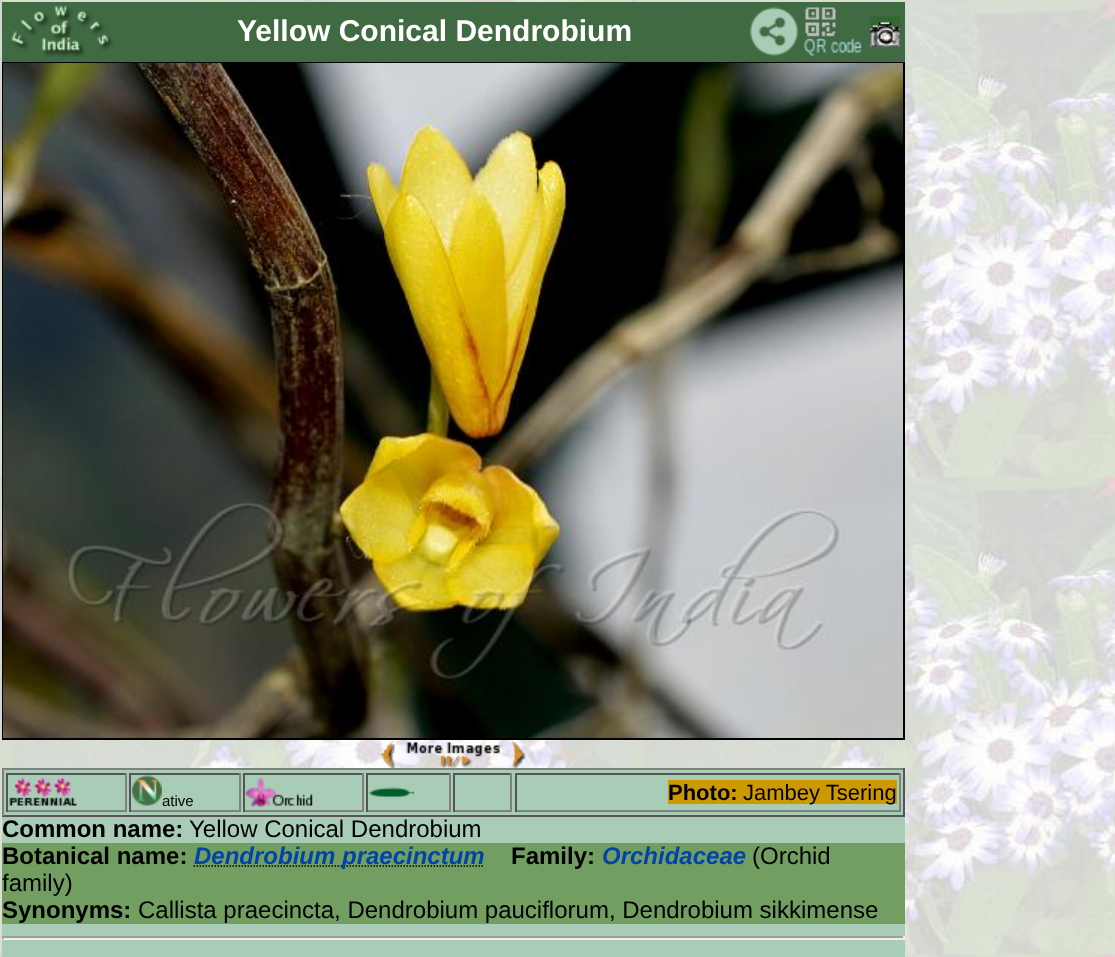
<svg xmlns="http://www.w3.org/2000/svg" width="1115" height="957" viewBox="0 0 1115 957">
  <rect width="100%" height="100%" fill="#fff"/>
  <image x="0" y="0" width="1115" height="957" href="img/1.png"/>
  <path d="M2 2h903v60H2z" fill="#406a42"/>
  <image x="11" y="6" width="103" height="51" href="img/2.png"/>
  <image x="750" y="7" width="48" height="49" href="img/3.png"/>
  <image x="804" y="7" width="58" height="49" href="img/4.png"/>
  <image x="870" y="16" width="30" height="31" href="img/5.png"/>
  <path d="M3 63h901v676H3z" fill="none" stroke="#000" stroke-width="2"/>
  <image x="3" y="63" width="900" height="675" href="img/6.png"/>
  <image x="380" y="741" width="15" height="27" href="img/7.png"/>
  <image x="406" y="742" width="94" height="26" href="img/8.png"/>
  <image x="511" y="741" width="15" height="27" href="img/9.png"/>
  <path d="M2 770h903v187H2z" fill="#a8ccb6"/>
  <path d="M2 768h903v2H2z" fill="#808080"/>
  <path d="M903 768h2v48H903z" fill="#555"/>
  <path d="M2 815h903v2H2z" fill="#555"/>
  <path d="M2 768h2v48H2z" fill="#808080"/>
  <path d="M6 773h120v2H6z" fill="#555"/>
  <path d="M125 773h2v39H125z" fill="#808080"/>
  <path d="M6 810h120v2H6z" fill="#808080"/>
  <path d="M6 773h2v39H6z" fill="#555"/>
  <image x="9" y="777" width="68" height="29" href="img/10.png"/>
  <path d="M129 773h111v2H129z" fill="#555"/>
  <path d="M239 773h2v39H239z" fill="#808080"/>
  <path d="M129 810h111v2H129z" fill="#808080"/>
  <path d="M129 773h2v39H129z" fill="#555"/>
  <image x="132" y="775" width="30" height="31" href="img/11.png"/>
  <path d="M243 773h120v2H243z" fill="#555"/>
  <path d="M362 773h2v39H362z" fill="#808080"/>
  <path d="M243 810h120v2H243z" fill="#808080"/>
  <path d="M243 773h2v39H243z" fill="#555"/>
  <image x="246" y="778" width="67" height="29" href="img/12.png"/>
  <path d="M366 773h84v2H366z" fill="#555"/>
  <path d="M449 773h2v39H449z" fill="#808080"/>
  <path d="M366 810h84v2H366z" fill="#808080"/>
  <path d="M366 773h2v39H366z" fill="#555"/>
  <image x="369" y="787" width="45" height="11" href="img/13.png"/>
  <path d="M453 773h59v2H453z" fill="#555"/>
  <path d="M510 773h2v39H510z" fill="#808080"/>
  <path d="M453 810h59v2H453z" fill="#808080"/>
  <path d="M453 773h2v39H453z" fill="#555"/>
  <path d="M515 773h385v2H515z" fill="#555"/>
  <path d="M899 773h2v39H899z" fill="#808080"/>
  <path d="M515 810h385v2H515z" fill="#808080"/>
  <path d="M515 773h2v39H515z" fill="#555"/>
  <path d="M668 780h229v24H668z" fill="#c90"/>
  <path d="M2 843h903v81H2z" fill="#729e62"/>
  <path d="M193.5 866H484.5" fill="none" stroke="#000" stroke-width="1.5" stroke-dasharray="1.5 1.5"/>
  <path d="M2 936h903v2H2z" fill="#9f9f9f"/>
  <path d="M903 936h2v3H903z" fill="#eee"/>
  <path d="M2 938h903v2H2z" fill="#eee"/>
  <path d="M2 936h2v3H2z" fill="#9f9f9f"/>
  <text x="237" y="41" font-family="Liberation Sans" font-size="30" font-weight="bold" fill="#fff">Yellow Conical Dendrobium</text>
  <text x="162" y="806" font-family="Liberation Sans" font-size="15" fill="#000">ative</text>
  <text x="668" y="800" font-family="Liberation Sans" font-size="22" font-weight="bold" fill="#000">Photo:</text>
  <text x="743" y="800" font-family="Liberation Sans" font-size="22" fill="#000">Jambey Tsering</text>
  <text x="2" y="837" font-family="Liberation Sans" font-size="24" font-weight="bold" fill="#000">Common name:</text>
  <text x="189" y="837" font-family="Liberation Sans" font-size="24" fill="#000">Yellow Conical Dendrobium</text>
  <text x="2" y="864" font-family="Liberation Sans" font-size="24" font-weight="bold" fill="#000">Botanical name:</text>
  <text x="194" y="864" font-family="Liberation Sans" font-size="24" font-weight="bold" font-style="italic" fill="#04a">Dendrobium praecinctum</text>
  <text x="511" y="864" font-family="Liberation Sans" font-size="24" font-weight="bold" fill="#000">Family:</text>
  <text x="602" y="864" font-family="Liberation Sans" font-size="24" font-weight="bold" font-style="italic" fill="#04a">Orchidaceae</text>
  <g font-family="Liberation Sans" font-size="24" fill="#000">
    <text x="752" y="864">(Orchid</text>
    <text x="2" y="891">family)</text>
  </g>
  <text x="2" y="918" font-family="Liberation Sans" font-size="24" font-weight="bold" fill="#000">Synonyms:</text>
  <text x="138" y="918" font-family="Liberation Sans" font-size="24" fill="#000">Callista praecincta, Dendrobium pauciflorum, Dendrobium sikkimense</text>
</svg>
